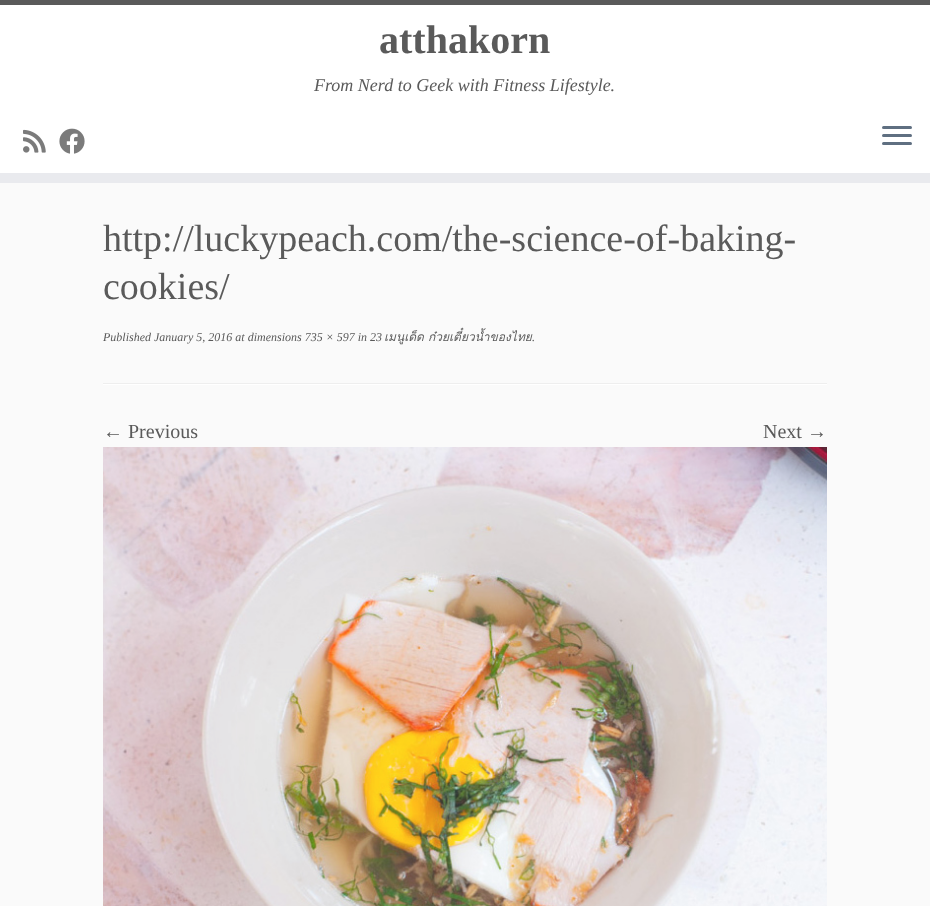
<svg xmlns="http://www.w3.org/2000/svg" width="930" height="906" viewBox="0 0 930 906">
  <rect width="100%" height="100%" fill="#fafafa"/>
  <path d="M0 5h930v168H0z" fill="#fff"/>
  <path d="M0 0h930v5H0z" fill="#5a5a5a"/>
  <path d="M0 173h930v10H0z" fill="#e9eaee"/>
  <image x="23" y="129" width="23" height="24" href="img/1.png"/>
  <image x="59" y="128" width="26" height="26" href="img/2.png"/>
  <rect x="882" y="126" width="30" height="3" rx="1.5" fill="#5f6f81"/>
  <rect x="882" y="134" width="30" height="3" rx="1.5" fill="#5f6f81"/>
  <rect x="882" y="142" width="30" height="3" rx="1.5" fill="#5f6f81"/>
  <path d="M103 383h724v1H103z" fill="#eee"/>
  <path d="M103 384h724v1H103z" fill="#fff"/>
  <image x="103" y="447" width="724" height="459" href="img/3.png"/>
  <text x="379" y="53" font-family="Liberation Serif" font-size="40" font-weight="bold" fill="#5a5a5a">atthakorn</text>
  <text x="314" y="91" font-family="Liberation Serif" font-size="18" font-style="italic" fill="#5a5a5a">From Nerd to Geek with Fitness Lifestyle.</text>
  <g font-family="Liberation Serif" font-size="38" fill="#5a5a5a">
    <text x="103" y="251">http://luckypeach.com/the-science-of-baking-</text>
    <text x="103" y="299">cookies/</text>
  </g>
  <g font-family="Liberation Serif" font-size="12" font-style="italic" fill="#5a5a5a">
    <text x="103" y="341">Published January 5, 2016 at dimensions 735 × 597 in</text>
    <text x="370" y="341">23</text>
  </g>
  <text x="384" y="341" font-family="Loma" font-size="12" font-style="italic" fill="#5a5a5a">เมนูเด็ด ก๋วยเตี๋ยวน้ำของไทย</text>
  <text x="532" y="341" font-family="Liberation Serif" font-size="12" font-style="italic" fill="#5a5a5a">.</text>
  <g font-family="Liberation Serif" font-size="20" fill="#5a5a5a">
    <text x="103" y="438">← Previous</text>
    <text x="763" y="438">Next →</text>
  </g>
</svg>
